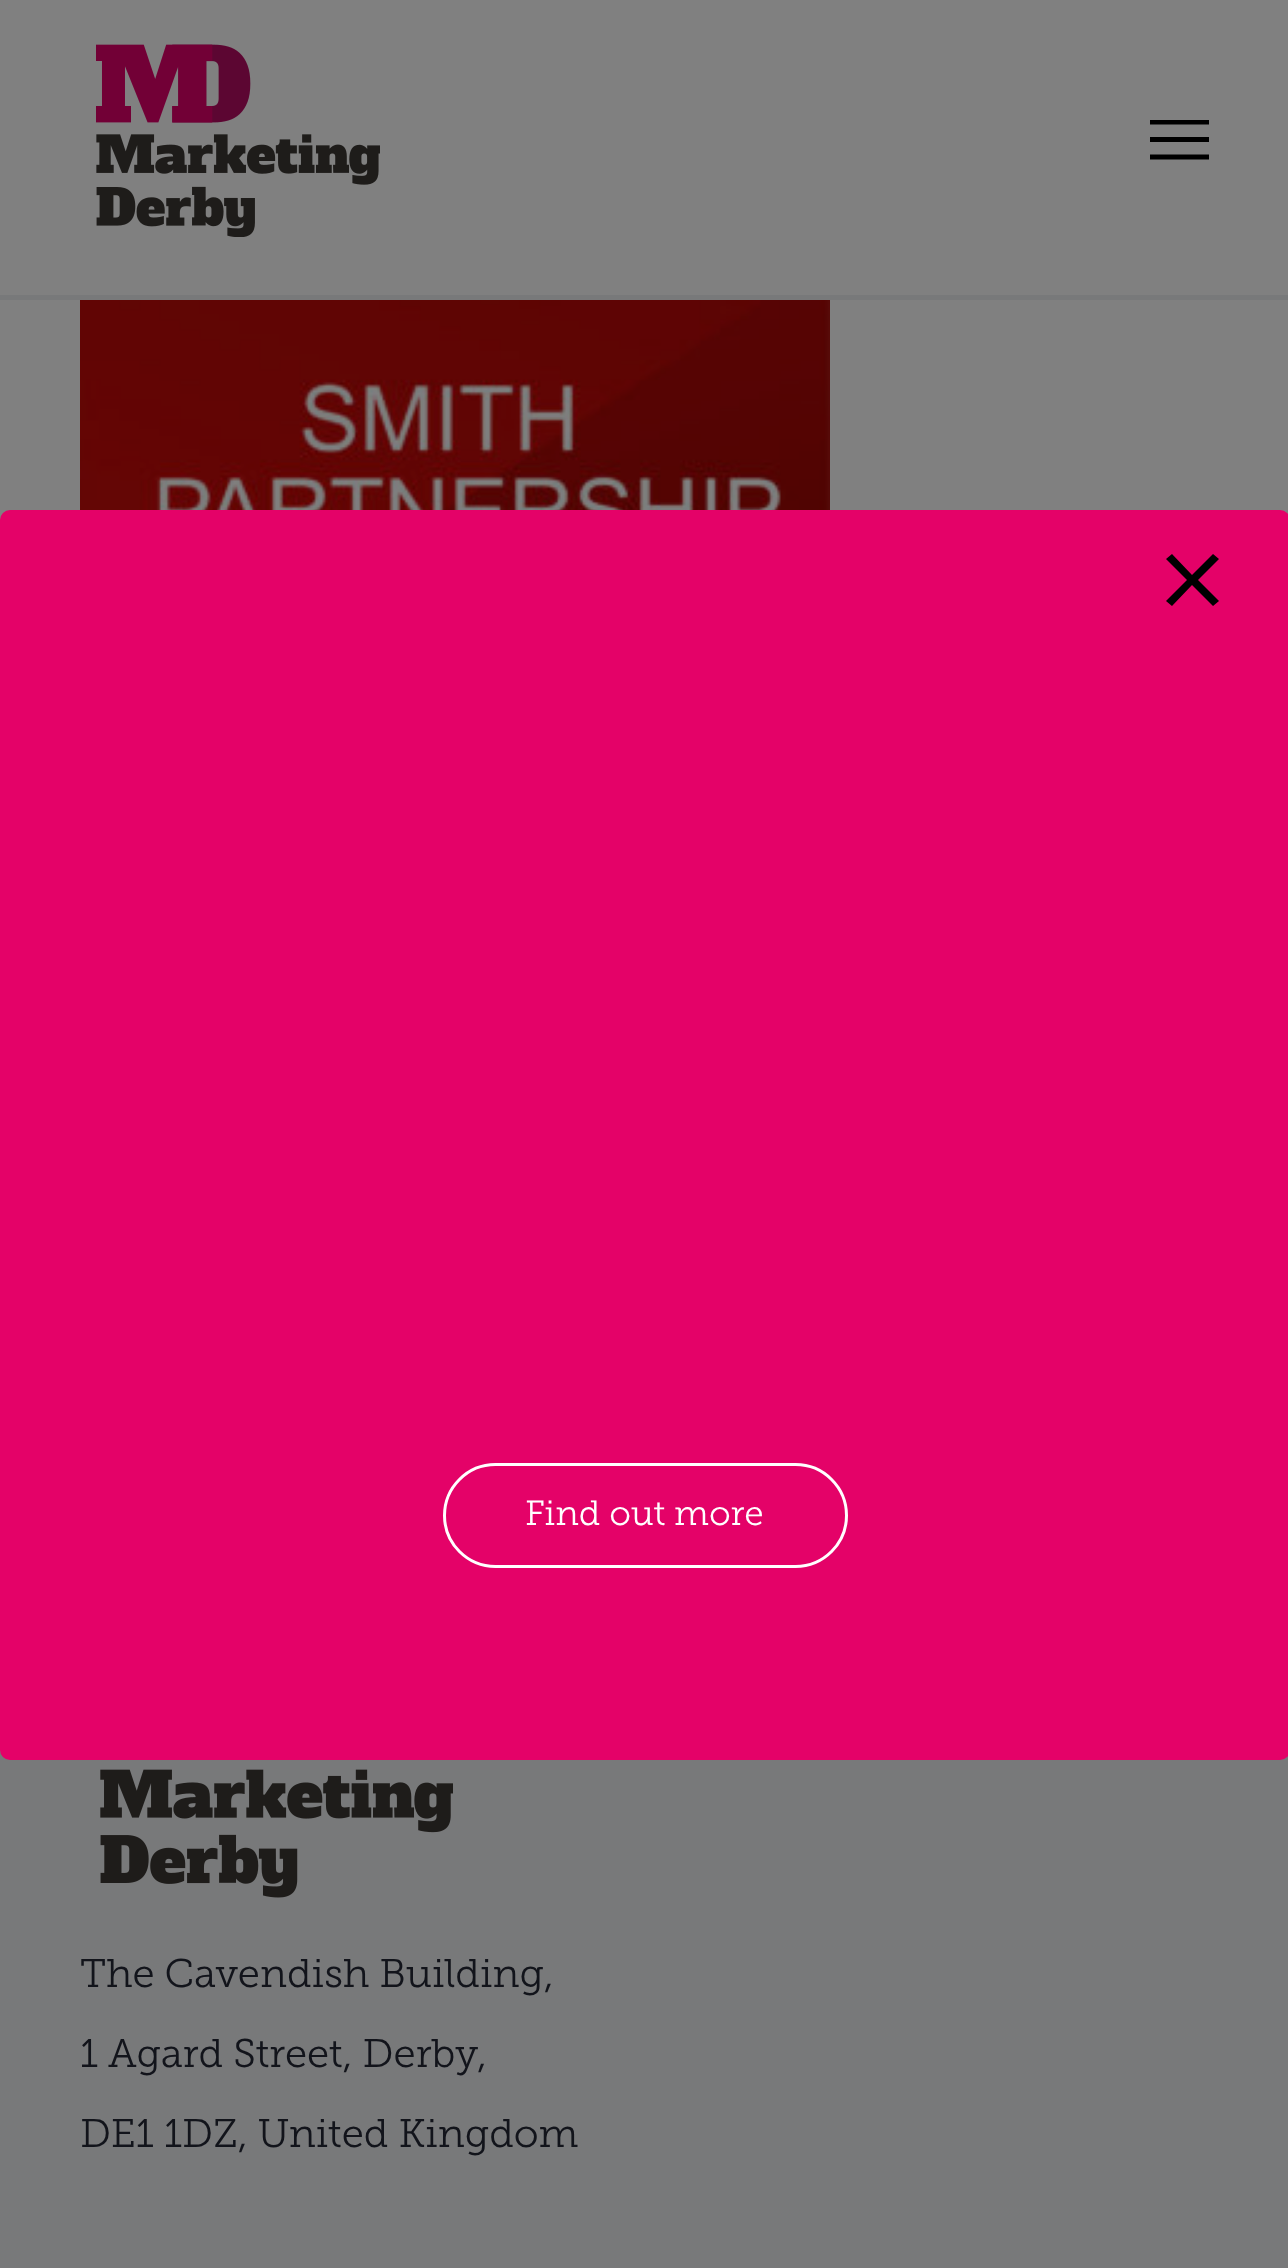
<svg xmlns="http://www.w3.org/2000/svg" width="1288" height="2268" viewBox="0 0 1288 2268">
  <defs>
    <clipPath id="clip1"><path d="M1150 120h60v40H1150z"/></clipPath>
  </defs>
  <rect width="100%" height="100%" fill="#808080"/>
  <path d="M0 295h1288v5H0z" fill="#78797a"/>
  <image x="96" y="44" width="284" height="193" href="img/1.png"/>
  <g clip-path="url(#clip1)">
    <path d="M1150 122H1209" fill="none" stroke="#000" stroke-width="5"/>
  </g>
  <path d="M1150 137h59v5H1150z" fill="#000"/>
  <path d="M1150 157H1209" fill="none" stroke="#000" stroke-width="5"/>
  <image x="80" y="300" width="750" height="210" href="img/2.png"/>
  <path d="M0 1750h1288v518H0z" fill="#78797a"/>
  <rect y="510" width="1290" height="1250" rx="10" fill="#e40268"/>
  <path d="M1219 559L1213 554L1192 575L1172 554L1166 559L1187 580L1166 601L1172 606L1192 585L1213 606L1219 601L1198 580Z" fill="#000"/>
  <rect x="444.5" y="1464.5" width="402" height="102" rx="51" fill="none" stroke="#fff" stroke-width="3"/>
  <image x="100" y="1769" width="353" height="129" href="img/3.png"/>
  <text x="525" y="1525" font-family="'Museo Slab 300'" font-size="35" font-weight="300" fill="#fff">Find out more</text>
  <g font-family="'Museo Slab 300'" font-size="40" font-weight="300" fill="#12141b">
    <text x="80" y="1987">The Cavendish Building,</text>
    <text x="80" y="2067">1 Agard Street, Derby,</text>
    <text x="80" y="2147">DE1 1DZ, United Kingdom</text>
  </g>
</svg>
